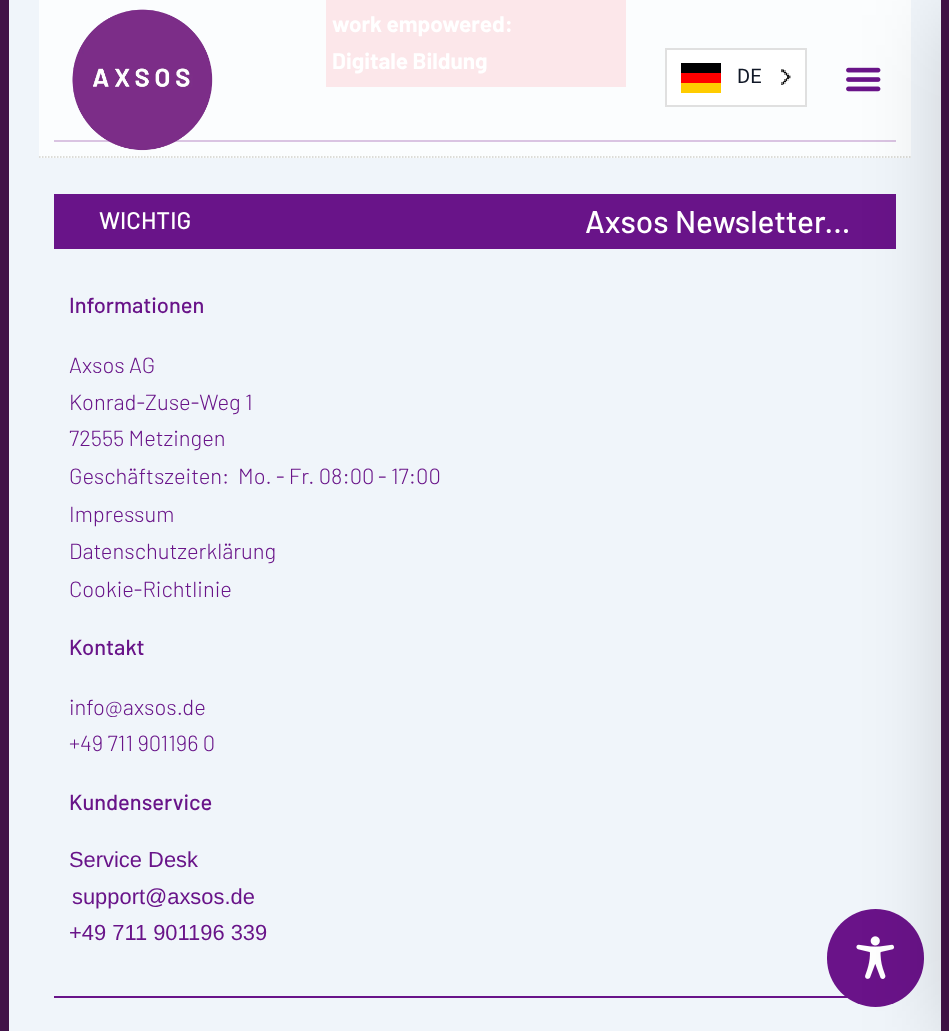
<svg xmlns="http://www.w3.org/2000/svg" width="949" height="1031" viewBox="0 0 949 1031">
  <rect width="100%" height="100%" fill="#f0f5fa"/>
  <path d="M39 0h872v158H39z" fill="#fbfdfe"/>
  <path d="M941 0h8v1031H941z" fill="#421348"/>
  <path d="M0 0h9v1031H0z" fill="#421348"/>
  <path d="M326 0h300v87H326z" fill="#fce7ea"/>
  <path d="M54 140h842v2H54z" fill="#dac4e2"/>
  <path d="M54 194h842v55H54z" fill="#691489"/>
  <path d="M54 996h794v2H54z" fill="#691489"/>
  <path d="M39 157H910.5" fill="none" stroke="#d3d1cb" stroke-width="1.5" stroke-dasharray="1.5 1.5"/>
  <image x="72" y="9" width="141" height="142" href="img/1.png"/>
  <path d="M666 49h140v57H666z" fill="#fff" stroke="#e0e0e0" stroke-width="2"/>
  <path d="M681 83h40v10H681z" fill="#fc0"/>
  <path d="M681 63h40v10H681z" fill="#000001"/>
  <path d="M681 73h40v10H681z" fill="#f00"/>
  <image x="781" y="69" width="10" height="16" href="img/2.png"/>
  <image x="846" y="67" width="35" height="25" href="img/3.png"/>
  <rect x="827" y="909" width="97" height="98" rx="48.5" fill="#6a1389"/>
  <image x="856" y="936" width="39" height="43" href="img/4.png"/>
  <path d="M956 15h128v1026H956z" fill="#00000033" filter="blur(45px)"/>
  <g font-family="Barlow" font-size="22.5" font-weight="bold" fill="#fff">
    <text x="332" y="32">work empowered:</text>
    <text x="332" y="69">Digitale Bildung</text>
  </g>
  <text x="99" y="229" font-family="Barlow" font-size="24" font-weight="500" fill="#fff">WICHTIG</text>
  <text x="585" y="233" font-family="Barlow" font-size="31.5" font-weight="500" fill="#fff">Axsos Newsletter...</text>
  <text x="69" y="313" font-family="Barlow" font-size="21.9" font-weight="500" fill="#691489">Informationen</text>
  <g font-family="Barlow" font-size="21.9" font-weight="300" fill="#691489">
    <text x="69" y="373">Axsos AG</text>
    <text x="69" y="410">Konrad-Zuse-Weg 1</text>
    <text x="69" y="446">72555 Metzingen</text>
    <text x="69" y="484" xml:space="preserve">Geschäftszeiten:  Mo. - Fr. 08:00</text>
    <text x="378" y="484">- 17:00</text>
    <text x="69" y="522">Impressum</text>
    <text x="69" y="559">Datenschutzerklärung</text>
    <text x="69" y="597">Cookie-Richtlinie</text>
  </g>
  <text x="69" y="655" font-family="Barlow" font-size="21.9" font-weight="500" fill="#691489">Kontakt</text>
  <g font-family="Barlow" font-size="21.9" font-weight="300" fill="#691489">
    <text x="69" y="715">info@axsos.de</text>
    <text x="69" y="751">+49 711 901196 0</text>
  </g>
  <text x="69" y="810" font-family="Barlow" font-size="21.9" font-weight="500" fill="#691489">Kundenservice</text>
  <g font-family="Liberation Sans" font-size="21.9" fill="#691489">
    <text x="69" y="867">Service Desk</text>
    <text x="72" y="904">support@axsos.de</text>
    <text x="69" y="940">+49 711 901196 339</text>
  </g>
  <text x="737" y="83" font-family="Roboto" font-size="20" fill="#111827">DE</text>
</svg>
